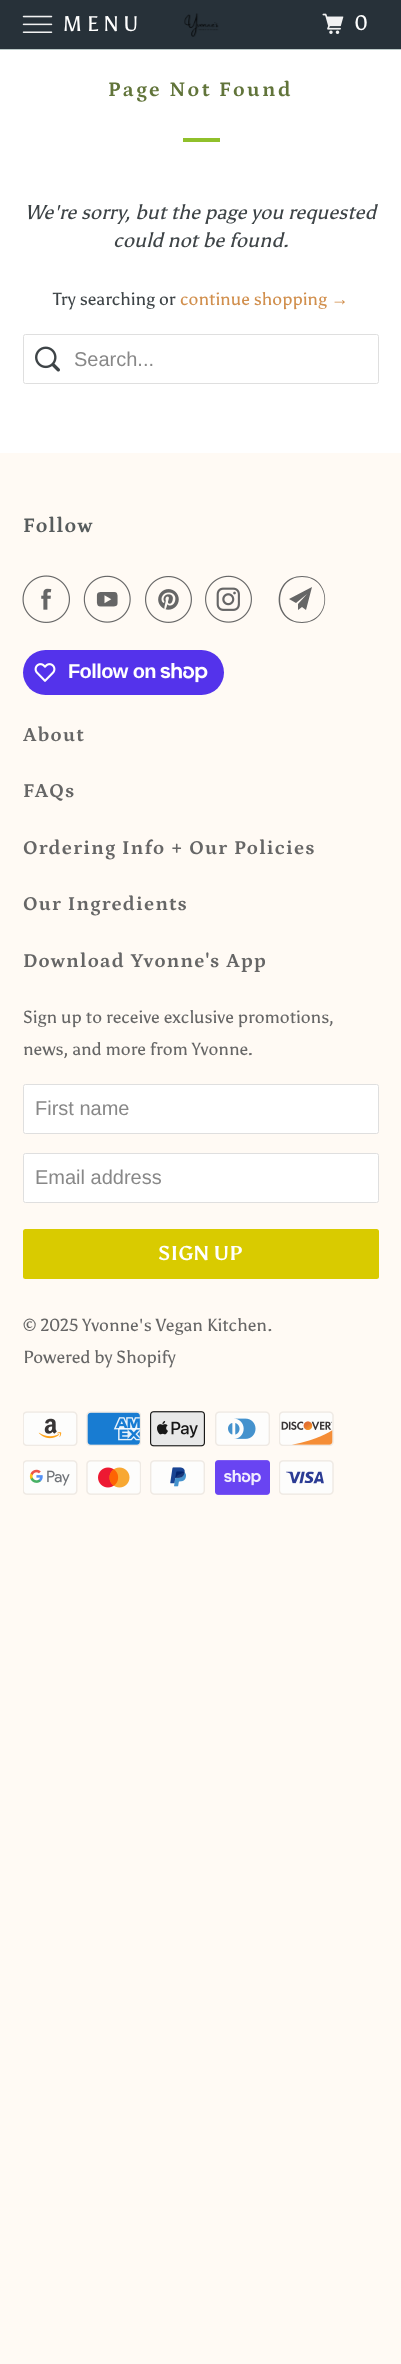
<svg xmlns="http://www.w3.org/2000/svg" width="401" height="2364" viewBox="0 0 401 2364">
  <rect width="100%" height="100%" fill="#fffaf4"/>
  <path d="M0 0h401v49H0z" fill="#273139"/>
  <path d="M0 49h401v1H0z" fill="#bcc9c8"/>
  <image x="22" y="15" width="31" height="18" href="img/1.png"/>
  <image x="184" y="13" width="35" height="24" href="img/2.png"/>
  <image x="322" y="13" width="22" height="21" href="img/3.png"/>
  <path d="M0 50h401v403H0z" fill="#fff"/>
  <path d="M183 138h37v4H183z" fill="#90c02b"/>
  <rect x="23.5" y="334.5" width="355" height="49" rx="2" fill="none" stroke="#dfdfdf"/>
  <image x="35" y="346" width="25" height="26" href="img/4.png"/>
  <image x="22" y="575" width="48" height="48" href="img/5.png"/>
  <image x="83" y="575" width="48" height="48" href="img/6.png"/>
  <image x="145" y="576" width="47" height="47" href="img/7.png"/>
  <image x="205" y="575" width="47" height="48" href="img/8.png"/>
  <path d="M306 610L302 607L298 610V604L307 594L296 603L289 599L312 587ZM302 577C273 577 273 622 302 622C332 622 332 577 302 577ZM302 623C271 623 271 576 302 576C333 576 333 623 302 623Z" fill="#666"/>
  <rect x="23" y="650" width="201" height="45" rx="22.5" fill="#5433eb"/>
  <image x="34" y="663" width="22" height="19" href="img/9.png"/>
  <image x="160" y="663" width="48" height="20" href="img/10.png"/>
  <rect x="23.5" y="1084.5" width="355" height="49" rx="2" fill="#fff" stroke="#dfdfdf"/>
  <rect x="23.5" y="1153.5" width="355" height="49" rx="2" fill="#fff" stroke="#dfdfdf"/>
  <rect x="23" y="1229" width="356" height="50" rx="2.5" fill="#d9cb00"/>
  <image x="23" y="1411" width="55" height="35" href="img/11.png"/>
  <image x="86" y="1411" width="55" height="35" href="img/12.png"/>
  <image x="150" y="1411" width="55" height="36" href="img/13.png"/>
  <image x="215" y="1411" width="55" height="35" href="img/14.png"/>
  <image x="279" y="1411" width="55" height="35" href="img/15.png"/>
  <image x="23" y="1460" width="55" height="35" href="img/16.png"/>
  <image x="86" y="1460" width="55" height="35" href="img/17.png"/>
  <image x="150" y="1460" width="55" height="35" href="img/18.png"/>
  <image x="215" y="1460" width="55" height="35" href="img/19.png"/>
  <image x="279" y="1460" width="55" height="35" href="img/20.png"/>
  <g font-family="Asul" font-size="21" letter-spacing="5" fill="#fff">
    <text x="63" y="31">MENU</text>
    <text x="354" y="30">0</text>
  </g>
  <text x="108" y="96" font-family="Petrona" font-size="21" font-weight="bold" letter-spacing="2.5" fill="#61743a">Page Not Found</text>
  <g font-family="Asul" font-size="20" font-style="italic" fill="#3e4447">
    <text x="25" y="219">We're sorry, but the page you requested</text>
    <text x="113" y="247">could not be found.</text>
  </g>
  <text x="53" y="305" font-family="Asul" font-size="17.5" fill="#3e4447">Try searching or</text>
  <text x="180" y="305" font-family="Asul" font-size="17.5" fill="#d18f4d">continue shopping</text>
  <text x="331" y="305" font-family="Liberation Serif" font-size="17.5" fill="#d18f4d">→</text>
  <text x="74" y="366" font-family="Liberation Sans" font-size="20" fill="#888">Search...</text>
  <text x="23" y="532" font-family="Petrona" font-size="21" font-weight="bold" letter-spacing="1.25" fill="#575c5d">Follow</text>
  <text x="68" y="678" font-family="Liberation Sans" font-size="20" font-weight="bold" letter-spacing="-0.6" fill="#fff">Follow on</text>
  <g font-family="Petrona" font-size="20" font-weight="bold" letter-spacing="1.25" fill="#666">
    <text x="23" y="741">About</text>
    <text x="23" y="797">FAQs</text>
    <text x="23" y="854">Ordering Info + Our Policies</text>
    <text x="23" y="910">Our Ingredients</text>
    <text x="23" y="967">Download Yvonne's App</text>
  </g>
  <g font-family="Asul" font-size="17.5" fill="#666">
    <text x="23" y="1023">Sign up to receive exclusive promotions,</text>
    <text x="23" y="1055">news, and more from Yvonne.</text>
  </g>
  <g font-family="Liberation Sans" font-size="20" fill="#888">
    <text x="35" y="1115">First name</text>
    <text x="35" y="1184">Email address</text>
  </g>
  <text x="158" y="1260" font-family="Asul" font-size="20" font-weight="bold" fill="#fff">SIGN UP</text>
  <g font-family="Asul" font-size="17.5" fill="#666">
    <text x="23" y="1331">© 2025 Yvonne's Vegan Kitchen.</text>
    <text x="23" y="1363">Powered by Shopify</text>
  </g>
</svg>
